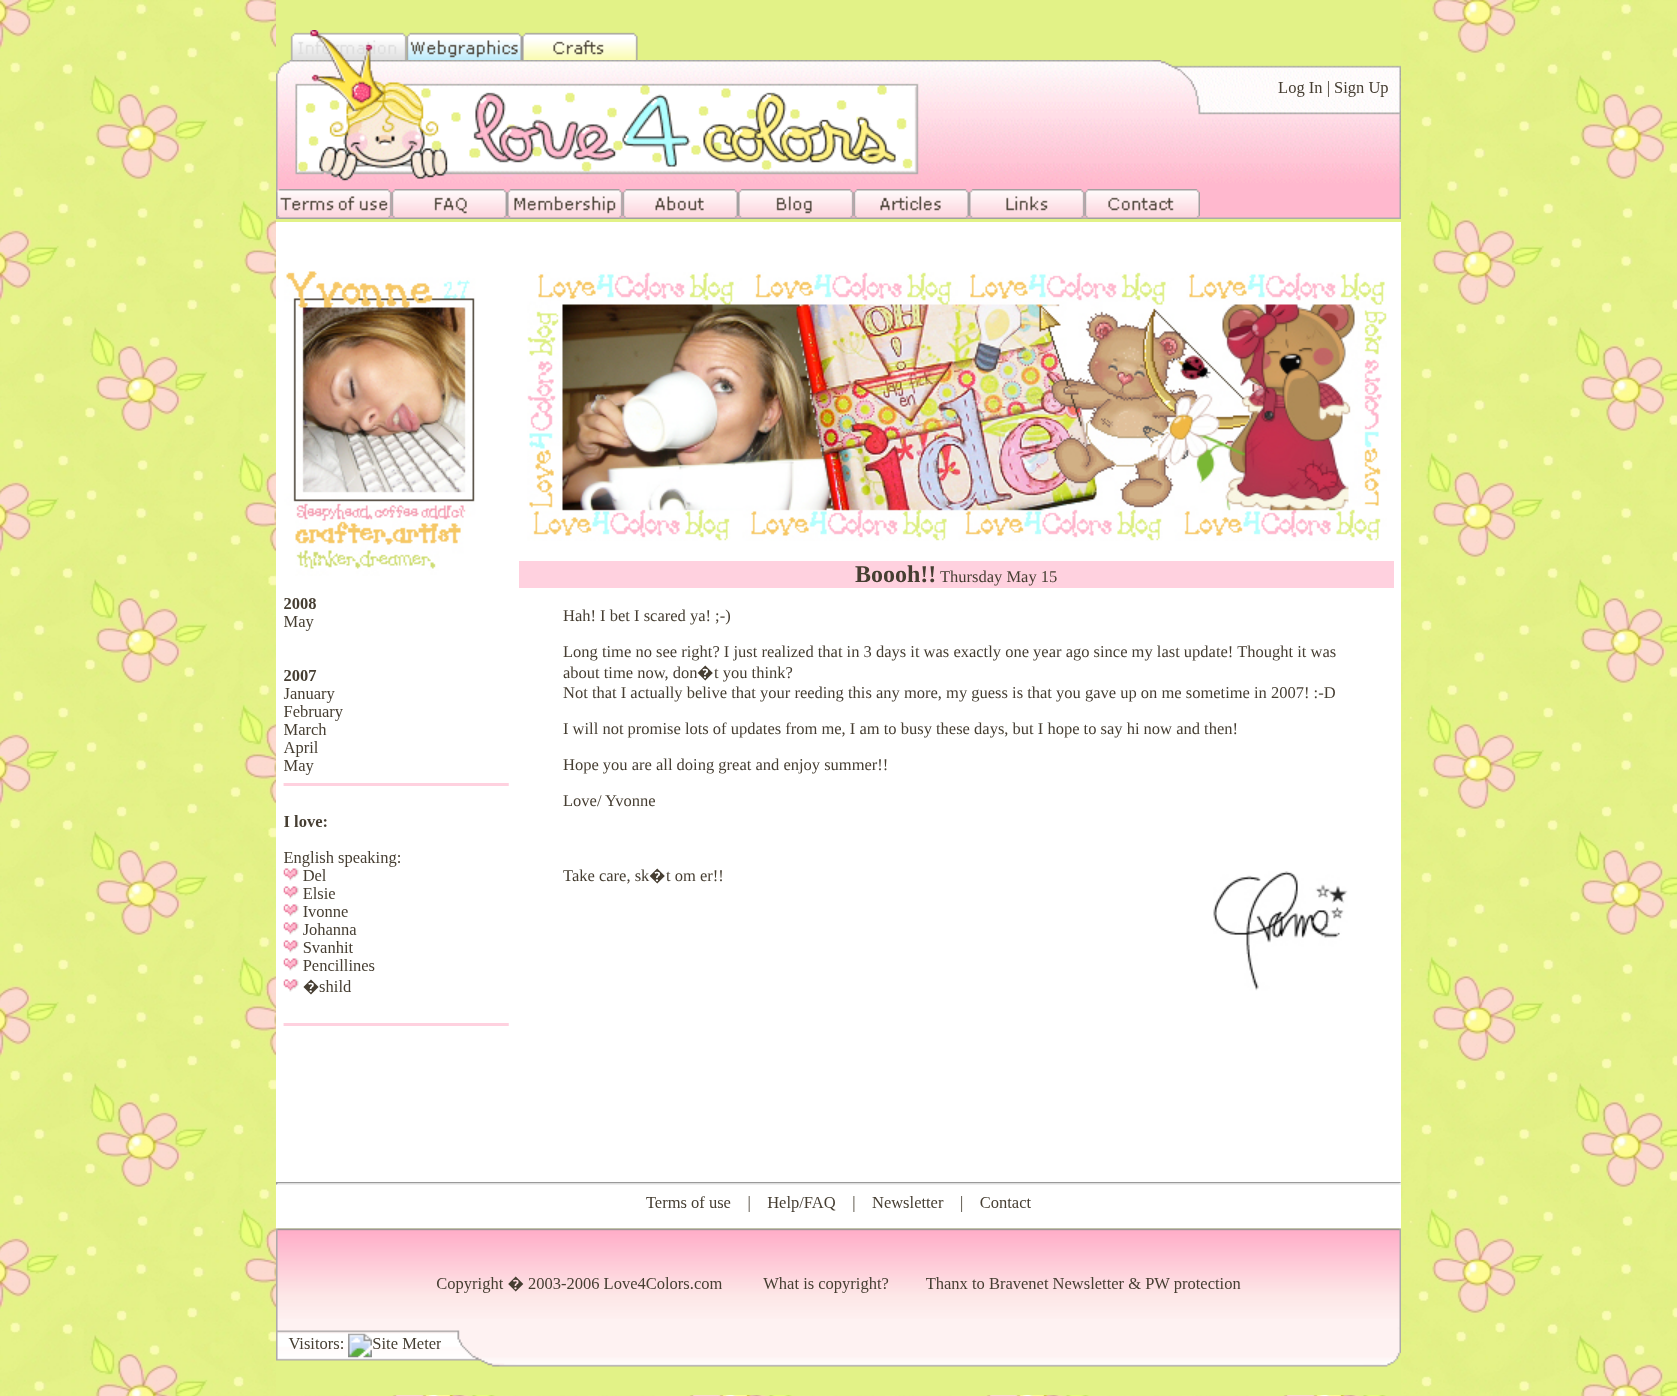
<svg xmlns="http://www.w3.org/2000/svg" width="1677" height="1396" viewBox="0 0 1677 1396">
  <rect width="100%" height="100%" fill="#fff"/>
  <image x="0" y="0" width="1677" height="1396" href="img/1.png"/>
  <image x="276" y="0" width="1125" height="222" href="img/2.png"/>
  <path d="M276 222h1125v960H276z" fill="#fff"/>
  <image x="283" y="271" width="226" height="755" href="img/3.png"/>
  <image x="527" y="272" width="860" height="269" href="img/4.png"/>
  <path d="M519 561h875v27H519z" fill="#ffd1df"/>
  <image x="1213" y="871" width="135" height="120" href="img/5.png"/>
  <image x="276" y="1182" width="1125" height="213" href="img/6.png"/>
  <text x="855" y="582" font-family="Liberation Serif" font-size="24" font-weight="bold" fill="#463e32">Boooh!!</text>
  <g font-family="Liberation Serif" font-size="16.5" fill="#463e32">
    <text x="940" y="582">Thursday May 15</text>
    <text x="563" y="621">Hah! I bet I scared ya! ;-)</text>
    <text x="563" y="657">Long time no see right? I just realized that in 3 days it was exactly one year ago since my last update! Thought it was</text>
    <text x="563" y="678">about time now, don</text>
  </g>
  <text x="697" y="678" font-family="Noto Sans" font-size="16.5" fill="#463e32">�</text>
  <g font-family="Liberation Serif" font-size="16.5" fill="#463e32">
    <text x="714" y="678">t you think?</text>
    <text x="563" y="698">Not that I actually belive that your reeding this any more, my guess is that you gave up on me sometime in 2007! :-D</text>
    <text x="563" y="734">I will not promise lots of updates from me, I am to busy these days, but I hope to say hi now and then!</text>
    <text x="563" y="770">Hope you are all doing great and enjoy summer!!</text>
    <text x="563" y="806">Love/ Yvonne</text>
    <text x="563" y="881">Take care, sk</text>
  </g>
  <text x="649" y="881" font-family="Noto Sans" font-size="16.5" fill="#463e32">�</text>
  <text x="666" y="881" font-family="Liberation Serif" font-size="16.5" fill="#463e32">t om er!!</text>
</svg>
